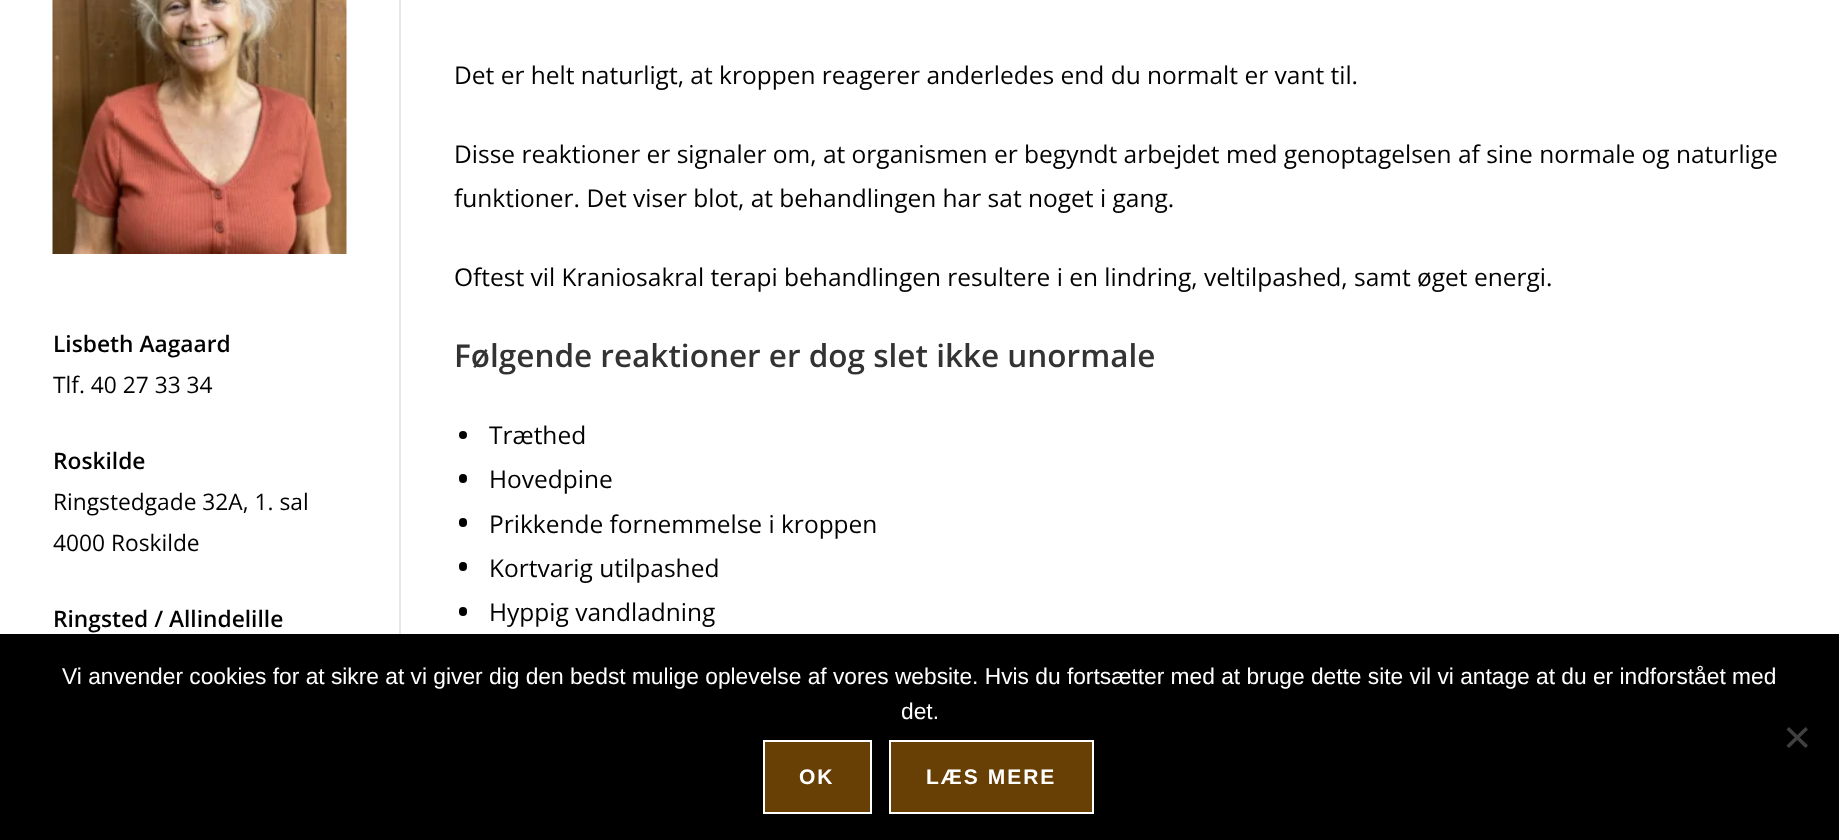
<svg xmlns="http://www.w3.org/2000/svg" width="1839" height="840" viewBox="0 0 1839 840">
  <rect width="100%" height="100%" fill="#fff"/>
  <image x="52" y="0" width="295" height="254" href="img/1.png"/>
  <path d="M399 0h2v634H399z" fill="#e8e8e8"/>
  <circle cx="463" cy="435" r="4" fill="#000"/>
  <rect x="459" y="474" width="8" height="9" rx="4" fill="#000"/>
  <rect x="459" y="518" width="8" height="9" rx="4" fill="#000"/>
  <rect x="459" y="562" width="8" height="9" rx="4" fill="#000"/>
  <rect x="459" y="607" width="8" height="9" rx="4" fill="#000"/>
  <path d="M0 634h1839v206H0z" fill="#000"/>
  <path d="M1805.5 727L1808 729.5L1789 748L1786.5 745.5Z" fill="#404040"/>
  <path d="M1786.5 729.5L1789 727L1808 745.5L1805.5 748Z" fill="#404040"/>
  <path d="M764 741h107v72H764z" fill="#684005" stroke="#fff" stroke-width="2"/>
  <path d="M890 741h203v72H890z" fill="#684005" stroke="#fff" stroke-width="2"/>
  <text x="53" y="352" font-family="Open Sans" font-size="22.75" font-weight="600" fill="#000">Lisbeth Aagaard</text>
  <text x="53" y="393" font-family="Open Sans" font-size="22.75" fill="#000">Tlf. 40 27 33 34</text>
  <text x="53" y="469" font-family="Open Sans" font-size="22.75" font-weight="600" fill="#000">Roskilde</text>
  <g font-family="Open Sans" font-size="22.75" fill="#000">
    <text x="53" y="510">Ringstedgade 32A, 1. sal</text>
    <text x="53" y="551">4000 Roskilde</text>
  </g>
  <text x="53" y="627" font-family="Open Sans" font-size="22.75" font-weight="600" fill="#000">Ringsted / Allindelille</text>
  <g font-family="Open Sans" font-size="24.5" fill="#000">
    <text x="454" y="84">Det er helt naturligt, at kroppen reagerer anderledes end du normalt er vant til.</text>
    <text x="454" y="163">Disse reaktioner er signaler om, at organismen er begyndt arbejdet med genoptagelsen af sine normale og naturlige</text>
    <text x="454" y="207">funktioner. Det viser blot, at behandlingen har sat noget i gang.</text>
    <text x="454" y="286">Oftest vil Kraniosakral terapi behandlingen resultere i en lindring, veltilpashed, samt øget energi.</text>
  </g>
  <text x="454" y="367" font-family="Open Sans" font-size="31.5" font-weight="600" fill="#333">Følgende reaktioner er dog slet ikke unormale</text>
  <g font-family="Open Sans" font-size="24.5" fill="#000">
    <text x="489" y="444">Træthed</text>
    <text x="489" y="488">Hovedpine</text>
    <text x="489" y="533">Prikkende fornemmelse i kroppen</text>
    <text x="489" y="577">Kortvarig utilpashed</text>
    <text x="489" y="621">Hyppig vandladning</text>
  </g>
  <g font-family="Liberation Sans" font-size="22.75" fill="#fff">
    <text x="62" y="684">Vi anvender cookies for at sikre at vi giver dig den bedst mulige oplevelse af vores website. Hvis du fortsætter med at bruge dette site vil vi antage at du er indforstået med</text>
    <text x="901" y="719">det.</text>
  </g>
  <g font-family="Liberation Sans" font-size="21" font-weight="bold" letter-spacing="2" fill="#fff">
    <text x="799" y="784">OK</text>
    <text x="926" y="784">LÆS MERE</text>
  </g>
</svg>
